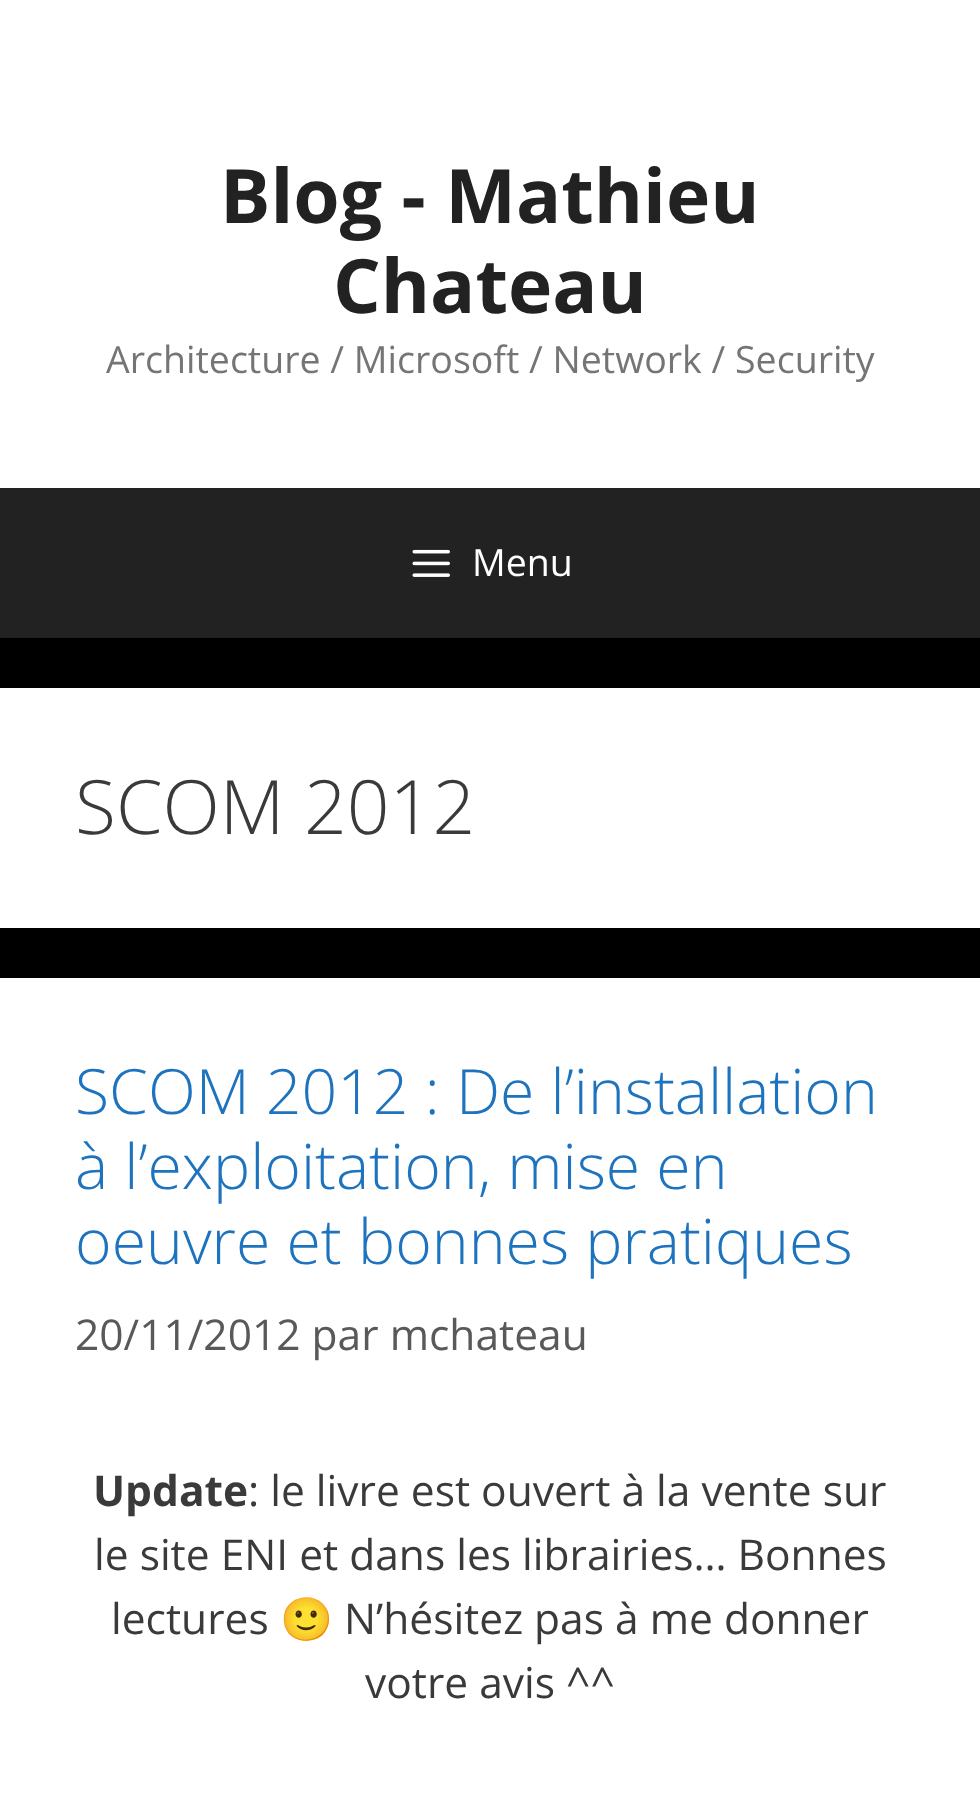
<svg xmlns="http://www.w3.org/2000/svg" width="980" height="1799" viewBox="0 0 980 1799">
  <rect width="100%" height="100%" fill="#000"/>
  <path d="M0 0h980v488H0z" fill="#fff"/>
  <path d="M0 488h980v150H0z" fill="#222"/>
  <image x="412" y="549" width="38" height="28" href="img/1.png"/>
  <path d="M0 688h980v240H0z" fill="#fff"/>
  <path d="M0 978h980v821H0z" fill="#fff"/>
  <g font-family="Open Sans" font-size="75" font-weight="bold" fill="#222">
    <text x="220" y="223">Blog - Mathieu</text>
    <text x="333" y="313">Chateau</text>
  </g>
  <text x="106" y="373" font-family="Open Sans" font-size="37.5" fill="#757575">Architecture / Microsoft / Network / Security</text>
  <text x="472" y="576" font-family="Open Sans" font-size="37.5" fill="#fff">Menu</text>
  <text x="75" y="834" font-family="Open Sans" font-size="75" font-weight="300" fill="#3a3a3a">SCOM 2012</text>
  <g font-family="Open Sans" font-size="62.5" font-weight="300" fill="#1e73be">
    <text x="75" y="1114">SCOM 2012 : De l’installation</text>
    <text x="75" y="1189">à l’exploitation, mise en</text>
    <text x="75" y="1264">oeuvre et bonnes pratiques</text>
  </g>
  <text x="75" y="1350" font-family="Open Sans" font-size="42.5" fill="#595959">20/11/2012 par mchateau</text>
  <text x="93" y="1506" font-family="Open Sans" font-size="42.5" font-weight="bold" fill="#3a3a3a">Update</text>
  <g font-family="Open Sans" font-size="42.5" fill="#3a3a3a">
    <text x="248" y="1506">: le livre est ouvert à la vente sur</text>
    <text x="94" y="1570">le site ENI et dans les librairies… Bonnes</text>
    <text x="111" y="1634">lectures</text>
  </g>
  <text x="280" y="1634" font-family="Noto Color Emoji" font-size="42.5" fill="#3a3a3a">🙂</text>
  <g font-family="Open Sans" font-size="42.5" fill="#3a3a3a">
    <text x="344" y="1634">N’hésitez pas à me donner</text>
    <text x="365" y="1698">votre avis ^^</text>
  </g>
</svg>
